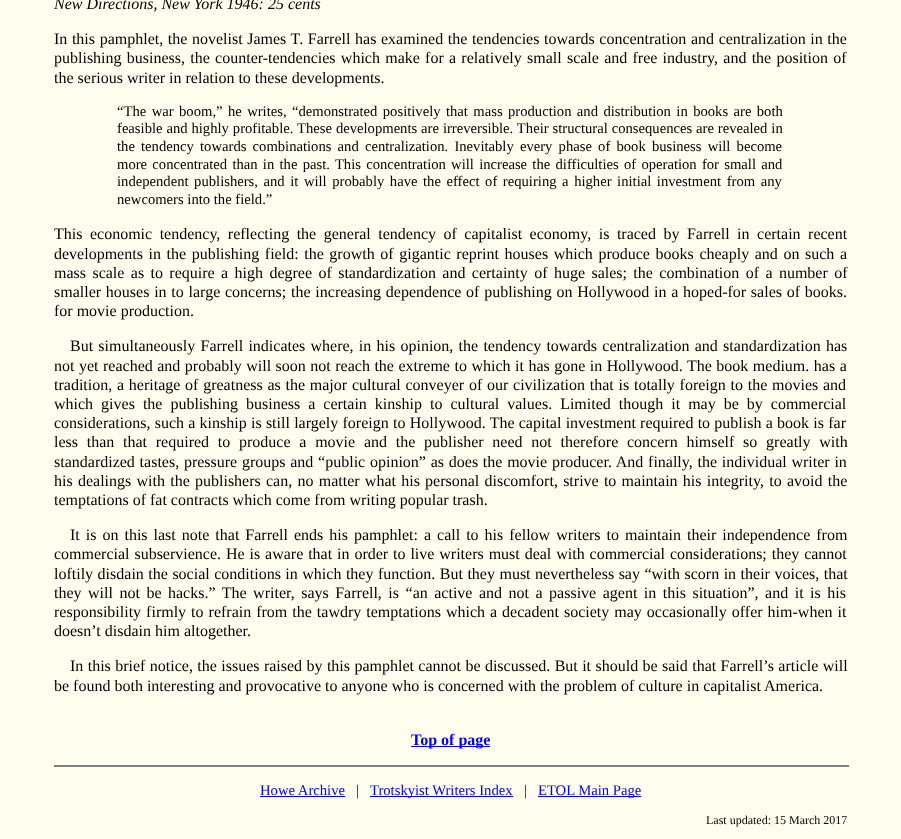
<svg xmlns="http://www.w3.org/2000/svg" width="901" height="839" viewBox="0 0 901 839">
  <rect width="100%" height="100%" fill="#fffff0"/>
  <path d="M411 746h79v1H411z" fill="#00f"/>
  <path d="M55 766h793v1H55z" fill="#808080"/>
  <path d="M54 765h795v1H54z" fill="#808080"/>
  <path d="M848 765h1v2H848z" fill="#808080"/>
  <path d="M54 765h1v2H54z" fill="#808080"/>
  <path d="M260 796h85v1H260z" fill="#00f"/>
  <path d="M370 796h143v1H370z" fill="#00f"/>
  <path d="M538 796h103v1H538z" fill="#00f"/>
  <text x="54" y="9" font-family="Liberation Serif" font-size="16" font-style="italic" fill="#000">New Directions, New York 1946: 25 cents</text>
  <g font-family="Liberation Serif" font-size="16" fill="#000">
    <text x="54" y="44" word-spacing="0.6">In this pamphlet, the novelist James T. Farrell has examined the tendencies towards concentration and centralization in the</text>
    <text x="54" y="63" word-spacing="1.25">publishing business, the counter-tendencies which make for a relatively small scale and free industry, and the position of</text>
    <text x="54" y="83">the serious writer in relation to these developments.</text>
  </g>
  <g font-family="Liberation Serif" font-size="14.65" fill="#000">
    <text x="117" y="116" word-spacing="1.75">“The war boom,” he writes, “demonstrated positively that mass production and distribution in books are both</text>
    <text x="117" y="133" word-spacing="0.25">feasible and highly profitable. These developments are irreversible. Their structural consequences are revealed in</text>
    <text x="117" y="151" word-spacing="2.5">the tendency towards combinations and centralization. Inevitably every phase of book business will become</text>
    <text x="117" y="169" word-spacing="1.6">more concentrated than in the past. This concentration will increase the difficulties of operation for small and</text>
    <text x="117" y="186" word-spacing="1.9">independent publishers, and it will probably have the effect of requiring a higher initial investment from any</text>
    <text x="117" y="204">newcomers into the field.”</text>
  </g>
  <g font-family="Liberation Serif" font-size="16" fill="#000">
    <text x="54" y="239" word-spacing="3.5">This economic tendency, reflecting the general tendency of capitalist economy, is traced by Farrell in certain recent</text>
    <text x="54" y="259" word-spacing="1.6">developments in the publishing field: the growth of gigantic reprint houses which produce books cheaply and on such a</text>
    <text x="54" y="278" word-spacing="2.4">mass scale as to require a high degree of standardization and certainty of huge sales; the combination of a number of</text>
    <text x="54" y="297" word-spacing="0.75">smaller houses in to large concerns; the increasing dependence of publishing on Hollywood in a hoped-for sales of books.</text>
    <text x="54" y="316">for movie production.</text>
    <text x="70" y="351" word-spacing="1.25">But simultaneously Farrell indicates where, in his opinion, the tendency towards centralization and standardization has</text>
    <text x="54" y="371" word-spacing="0.5">not yet reached and probably will soon not reach the extreme to which it has gone in Hollywood. The book medium. has a</text>
    <text x="54" y="390" word-spacing="0.75">tradition, a heritage of greatness as the major cultural conveyer of our civilization that is totally foreign to the movies and</text>
    <text x="54" y="409" word-spacing="4">which gives the publishing business a certain kinship to cultural values. Limited though it may be by commercial</text>
    <text x="54" y="428" word-spacing="0.25">considerations, such a kinship is still largely foreign to Hollywood. The capital investment required to publish a book is far</text>
    <text x="54" y="447" word-spacing="4.75">less than that required to produce a movie and the publisher need not therefore concern himself so greatly with</text>
    <text x="54" y="467" word-spacing="0.75">standardized tastes, pressure groups and “public opinion” as does the movie producer. And finally, the individual writer in</text>
    <text x="54" y="486" word-spacing="1.25">his dealings with the publishers can, no matter what his personal discomfort, strive to maintain his integrity, to avoid the</text>
    <text x="54" y="505">temptations of fat contracts which come from writing popular trash.</text>
    <text x="70" y="540" word-spacing="2">It is on this last note that Farrell ends his pamphlet: a call to his fellow writers to maintain their independence from</text>
    <text x="54" y="559" word-spacing="0.9">commercial subservience. He is aware that in order to live writers must deal with commercial considerations; they cannot</text>
    <text x="54" y="579" word-spacing="0.5">loftily disdain the social conditions in which they function. But they must nevertheless say “with scorn in their voices, that</text>
    <text x="54" y="598" word-spacing="2.5">they will not be hacks.” The writer, says Farrell, is “an active and not a passive agent in this situation”, and it is his</text>
    <text x="54" y="617" word-spacing="1">responsibility firmly to refrain from the tawdry temptations which a decadent society may occasionally offer him-when it</text>
    <text x="54" y="636">doesn’t disdain him altogether.</text>
    <text x="70" y="671" word-spacing="0.4">In this brief notice, the issues raised by this pamphlet cannot be discussed. But it should be said that Farrell’s article will</text>
    <text x="54" y="691">be found both interesting and provocative to anyone who is concerned with the problem of culture in capitalist America.</text>
  </g>
  <text x="411" y="745" font-family="Liberation Serif" font-size="16" font-weight="bold" fill="#00f">Top of page</text>
  <text x="260" y="795" font-family="Liberation Serif" font-size="14.65" fill="#00f">Howe Archive</text>
  <text x="356" y="795" font-family="Liberation Serif" font-size="14.65" fill="#000">|</text>
  <text x="370" y="795" font-family="Liberation Serif" font-size="14.65" fill="#00f">Trotskyist Writers Index</text>
  <text x="524" y="795" font-family="Liberation Serif" font-size="14.65" fill="#000">|</text>
  <text x="538" y="795" font-family="Liberation Serif" font-size="14.65" fill="#00f">ETOL Main Page</text>
  <text x="706" y="824" font-family="Liberation Serif" font-size="12" fill="#000">Last updated: 15 March 2017</text>
</svg>
